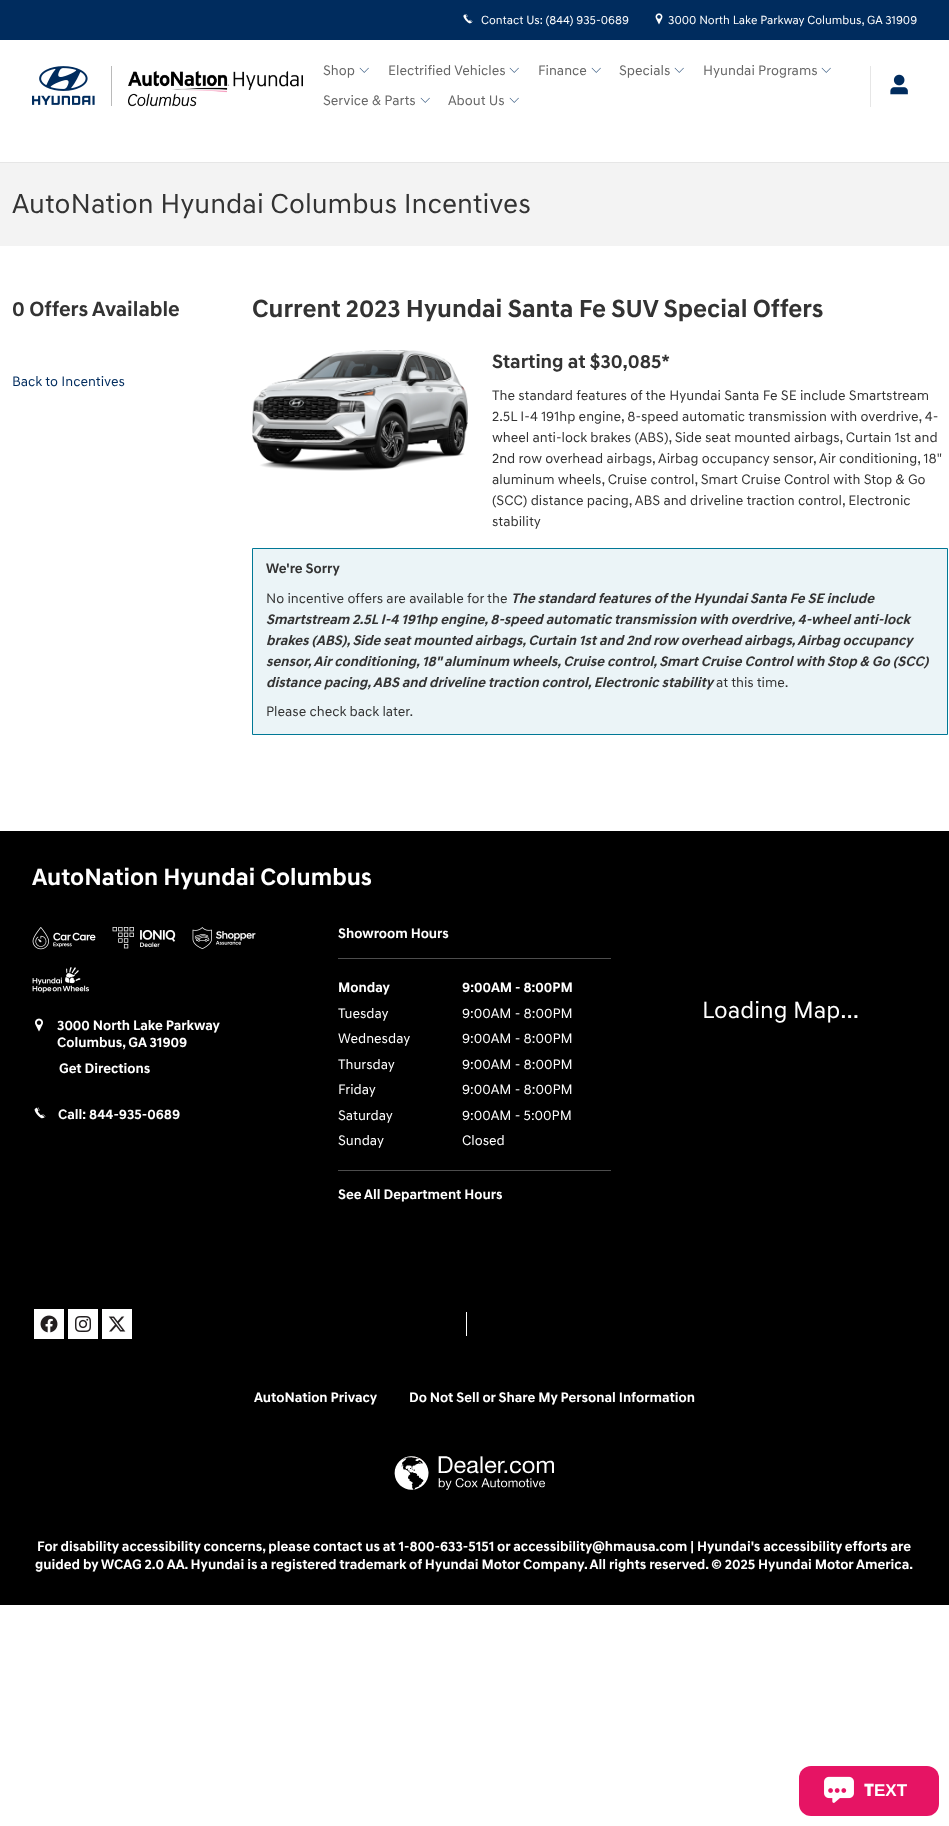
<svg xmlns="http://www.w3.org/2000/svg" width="949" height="1826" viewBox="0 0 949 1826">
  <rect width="100%" height="100%" fill="#fff"/>
  <path d="M0 162h949v1H0z" fill="#e6e6e6"/>
  <path d="M0 0h949v40H0z" fill="#002c5e"/>
  <image x="463" y="14" width="10" height="10" href="img/1.png"/>
  <image x="655" y="13" width="8" height="12" href="img/2.png"/>
  <path d="M111 66h1v40H111z" fill="#bababa"/>
  <image x="32" y="66" width="63" height="39" href="img/3.png"/>
  <image x="128" y="70" width="175" height="37" href="img/4.png"/>
  <image x="359" y="67" width="10" height="6" href="img/5.png"/>
  <image x="509" y="67" width="10" height="6" href="img/5.png"/>
  <image x="591" y="67" width="10" height="6" href="img/5.png"/>
  <image x="674" y="67" width="10" height="6" href="img/5.png"/>
  <image x="821" y="67" width="10" height="6" href="img/5.png"/>
  <image x="420" y="97" width="10" height="6" href="img/5.png"/>
  <image x="509" y="97" width="10" height="6" href="img/5.png"/>
  <path d="M870 66h1v41H870z" fill="#e6e6e6"/>
  <image x="890" y="74" width="18" height="21" href="img/6.png"/>
  <path d="M0 163h949v83H0z" fill="#f3f3f3"/>
  <image x="252" y="350" width="216" height="121" href="img/7.png"/>
  <path d="M252.5 548.5h695v186H252.5z" fill="#ebf4f7" stroke="#007896"/>
  <path d="M0 831h949v774H0z" fill="#000"/>
  <path d="M338 958h273v1H338z" fill="#4d4d4d"/>
  <path d="M338 1170h273v1H338z" fill="#4d4d4d"/>
  <image x="32" y="927" width="64" height="23" href="img/8.png"/>
  <image x="112" y="927" width="64" height="22" href="img/9.png"/>
  <image x="192" y="927" width="64" height="22" href="img/10.png"/>
  <image x="32" y="967" width="57" height="26" href="img/11.png"/>
  <image x="35" y="1018" width="8" height="14" href="img/12.png"/>
  <image x="34" y="1107" width="12" height="12" href="img/13.png"/>
  <image x="34" y="1309" width="30" height="30" href="img/14.png"/>
  <image x="68" y="1309" width="30" height="30" href="img/15.png"/>
  <image x="102" y="1309" width="30" height="30" href="img/16.png"/>
  <path d="M466 1312h1v24H466z" fill="#fff"/>
  <image x="394" y="1456" width="160" height="34" href="img/17.png"/>
  <rect x="799" y="1766" width="140" height="50" rx="12" fill="#e61464"/>
  <image x="824" y="1776" width="30" height="27" href="img/18.png"/>
  <g font-family="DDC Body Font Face" font-size="12" fill="#fff">
    <text x="481" y="24">Contact Us: (844) 935-0689</text>
    <text x="668" y="24">3000 North Lake Parkway Columbus,</text>
    <text x="867" y="24">GA 31909</text>
  </g>
  <g font-family="DDC Body Font Face" font-size="14" fill="#666">
    <text x="323" y="75">Shop</text>
    <text x="388" y="75">Electrified Vehicles</text>
    <text x="538" y="75">Finance</text>
    <text x="619" y="75">Specials</text>
    <text x="703" y="75">Hyundai Programs</text>
    <text x="323" y="105">Service &amp; Parts</text>
    <text x="448" y="105">About Us</text>
  </g>
  <text x="12" y="213" font-family="DDC Body Font Face" font-size="28" fill="#333">AutoNation Hyundai Columbus Incentives</text>
  <text x="12" y="316" font-family="DDC Body Font Face" font-size="21" font-weight="bold" fill="#333">0 Offers Available</text>
  <text x="12" y="386" font-family="DDC Body Font Face" font-size="14" fill="#002c5e">Back to Incentives</text>
  <text x="252" y="317" font-family="DDC Body Font Face" font-size="25.2" font-weight="bold" fill="#333">Current 2023 Hyundai Santa Fe SUV Special Offers</text>
  <text x="492" y="368" font-family="DDC Body Font Face" font-size="19.5" font-weight="bold" fill="#333">Starting at $30,085*</text>
  <g font-family="DDC Body Font Face" font-size="14" fill="#333">
    <text x="492" y="400">The standard features of the Hyundai Santa Fe SE include Smartstream</text>
    <text x="492" y="421">2.5L I-4 191hp engine, 8-speed automatic transmission with overdrive, 4-</text>
    <text x="492" y="442">wheel anti-lock brakes (ABS), Side seat mounted airbags, Curtain 1st and</text>
    <text x="492" y="463">2nd row overhead airbags, Airbag occupancy sensor, Air conditioning, 18"</text>
    <text x="492" y="484">aluminum wheels, Cruise control, Smart Cruise Control with Stop &amp; Go</text>
    <text x="492" y="505">(SCC) distance pacing, ABS and driveline traction control, Electronic</text>
    <text x="492" y="526">stability</text>
  </g>
  <text x="266" y="573" font-family="DDC Body Font Face" font-size="14" font-weight="bold" fill="#333">We're Sorry</text>
  <text x="266" y="603" font-family="DDC Body Font Face" font-size="14" fill="#333">No incentive offers are available for the</text>
  <g font-family="DDC Body Font Face" font-size="14" font-weight="bold" font-style="italic" fill="#333">
    <text x="511" y="603">The standard features of the Hyundai Santa Fe SE include</text>
    <text x="266" y="624">Smartstream 2.5L I-4 191hp engine, 8-speed automatic transmission with overdrive, 4-wheel anti-lock</text>
    <text x="266" y="645">brakes (ABS), Side seat mounted airbags, Curtain 1st and 2nd row overhead airbags, Airbag occupancy</text>
    <text x="266" y="666">sensor, Air conditioning, 18" aluminum wheels, Cruise control, Smart Cruise Control with Stop &amp; Go (SCC)</text>
    <text x="266" y="687">distance pacing, ABS and driveline traction control, Electronic stability</text>
  </g>
  <g font-family="DDC Body Font Face" font-size="14" fill="#333">
    <text x="716" y="687">at this time.</text>
    <text x="266" y="716">Please check back later.</text>
  </g>
  <text x="32" y="885" font-family="DDC Body Font Face" font-size="24" font-weight="bold" fill="#fff">AutoNation Hyundai Columbus</text>
  <g font-family="DDC Body Font Face" font-size="14" font-weight="bold" fill="#fff">
    <text x="338" y="938">Showroom Hours</text>
    <text x="338" y="992">Monday</text>
    <text x="462" y="992">9:00AM - 8:00PM</text>
  </g>
  <g font-family="DDC Body Font Face" font-size="14" fill="#fff">
    <text x="338" y="1018">Tuesday</text>
    <text x="462" y="1018">9:00AM - 8:00PM</text>
    <text x="338" y="1043">Wednesday</text>
    <text x="462" y="1043">9:00AM - 8:00PM</text>
    <text x="338" y="1069">Thursday</text>
    <text x="462" y="1069">9:00AM - 8:00PM</text>
    <text x="338" y="1094">Friday</text>
    <text x="462" y="1094">9:00AM - 8:00PM</text>
    <text x="338" y="1120">Saturday</text>
    <text x="462" y="1120">9:00AM - 5:00PM</text>
    <text x="338" y="1145">Sunday</text>
    <text x="462" y="1145">Closed</text>
  </g>
  <text x="338" y="1199" font-family="DDC Body Font Face" font-size="14" font-weight="bold" fill="#fff">See All Department Hours</text>
  <text x="702" y="1018" font-family="DDC Body Font Face" font-size="24" fill="#fff">Loading Map...</text>
  <g font-family="DDC Body Font Face" font-size="14" font-weight="bold" fill="#fff">
    <text x="57" y="1030">3000 North Lake Parkway</text>
    <text x="57" y="1047">Columbus, GA 31909</text>
    <text x="59" y="1073">Get Directions</text>
    <text x="58" y="1119">Call: 844-935-0689</text>
    <text x="254" y="1402">AutoNation Privacy</text>
    <text x="409" y="1402">Do Not Sell or Share My Personal Information</text>
    <text x="37" y="1551">For disability accessibility concerns, please contact us at 1-800-633-5151 or accessibility@hmausa.com | Hyundai's accessibility efforts are</text>
    <text x="35" y="1569">guided by WCAG 2.0 AA. Hyundai is a registered trademark of Hyundai Motor Company. All rights reserved. © 2025 Hyundai Motor America.</text>
  </g>
  <text x="864" y="1796" font-family="Noto Sans" font-size="17" font-weight="900" fill="#fff">T</text>
  <text x="874" y="1796" font-family="Liberation Sans" font-size="17" font-weight="bold" fill="#fff">EXT</text>
</svg>
